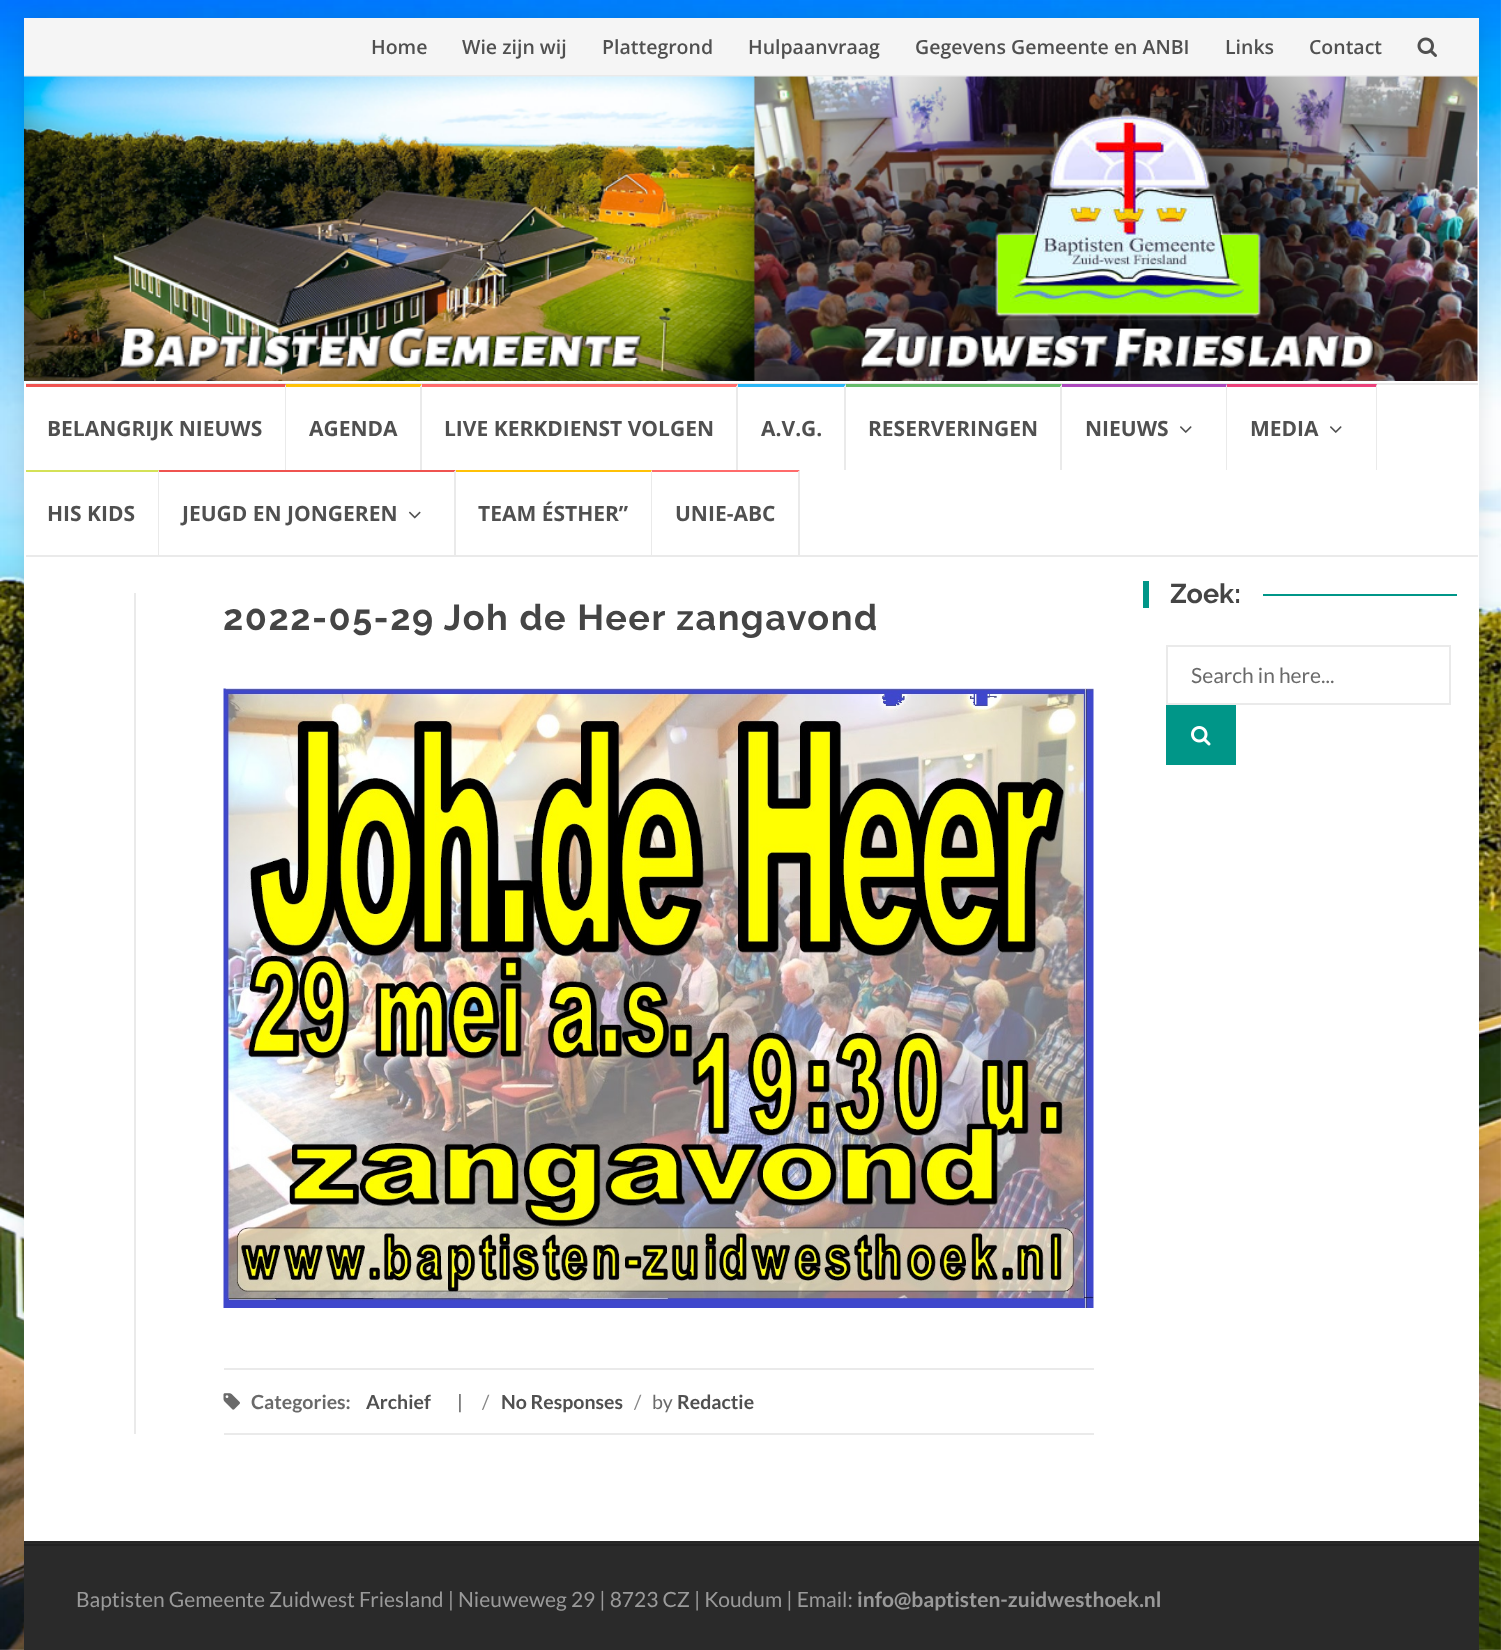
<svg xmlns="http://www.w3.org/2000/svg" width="1501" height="1650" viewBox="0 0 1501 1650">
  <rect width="100%" height="100%" fill="#fff"/>
  <image x="0" y="0" width="1501" height="1650" href="img/1.png"/>
  <path d="M24 18h1455v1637H24z" fill="#0000001a" filter="blur(11px)"/>
  <path d="M24 77h1455v1464H24z" fill="#fff"/>
  <path d="M24 18h1455v57H24z" fill="#f5f5f5"/>
  <path d="M24 75h1455v2H24z" fill="#eaeaea"/>
  <image x="1417" y="37" width="20" height="20" href="img/2.png"/>
  <image x="24" y="76" width="1454" height="305" href="img/3.png"/>
  <path d="M26 383h1452v2H26z" fill="#eaeaea"/>
  <path d="M26 555h1452v2H26z" fill="#eaeaea"/>
  <path d="M26 384H286L285 387H26Z" fill="#ef5350"/>
  <path d="M286 384V470H285V387Z" fill="#eaeaea"/>
  <path d="M286 384H422L420 387H286Z" fill="#ffc107"/>
  <path d="M422 384V470H420V387Z" fill="#eaeaea"/>
  <path d="M422 384H738L736 387H422Z" fill="#ff6b6b"/>
  <path d="M738 384V470H736V387Z" fill="#eaeaea"/>
  <path d="M738 384H846L844 387H738Z" fill="#29b6f6"/>
  <path d="M846 384V470H844V387Z" fill="#eaeaea"/>
  <path d="M846 384H1062L1060 387H846Z" fill="#66bb6a"/>
  <path d="M1062 384V470H1060V387Z" fill="#eaeaea"/>
  <path d="M1062 384H1227L1226 387H1062Z" fill="#ab47bc"/>
  <path d="M1227 384V470H1226V387Z" fill="#eaeaea"/>
  <image x="1180" y="426" width="12" height="7" href="img/4.png"/>
  <path d="M1227 384H1377L1376 387H1227Z" fill="#ec407a"/>
  <path d="M1377 384V470H1376V387Z" fill="#eaeaea"/>
  <image x="1330" y="426" width="12" height="7" href="img/4.png"/>
  <path d="M26 470H159L158 472H26Z" fill="#d4e157"/>
  <path d="M159 470V555H158V472Z" fill="#eaeaea"/>
  <path d="M159 470H456L454 472H159Z" fill="#ef5350"/>
  <path d="M456 470V555H454V472Z" fill="#eaeaea"/>
  <image x="408" y="511" width="13" height="8" href="img/5.png"/>
  <path d="M456 470H652L651 472H456Z" fill="#ffc107"/>
  <path d="M652 470V555H651V472Z" fill="#eaeaea"/>
  <path d="M652 470H800L798 472H652Z" fill="#ff6b6b"/>
  <path d="M800 470V555H798V472Z" fill="#eaeaea"/>
  <path d="M134 593h2v841H134z" fill="#eaeaea"/>
  <image x="223" y="688" width="871" height="620" href="img/6.png"/>
  <path d="M224 1368h870v2H224z" fill="#eaeaea"/>
  <path d="M224 1433h870v2H224z" fill="#eaeaea"/>
  <image x="223" y="1393" width="17" height="17" href="img/7.png"/>
  <path d="M1143 581h6v27H1143z" fill="#009688"/>
  <path d="M1263 594h194v2H1263z" fill="#009688"/>
  <path d="M1167 646h283v58H1167z" fill="none" stroke="#eaeaea" stroke-width="2"/>
  <path d="M1166 705h70v60H1166z" fill="#009688"/>
  <image x="1191" y="726" width="20" height="20" href="img/8.png"/>
  <path d="M24 1543h1455v107H24z" fill="#2a2a2a"/>
  <path d="M24 1541h1455v2H24z" fill="#262626"/>
  <path d="M24 1544h1455v2H24z" fill="#222"/>
  <g font-family="Open Sans" font-size="19.5" font-weight="600" fill="#505050">
    <text x="371" y="54">Home</text>
    <text x="462" y="54">Wie zijn wij</text>
    <text x="602" y="54">Plattegrond</text>
    <text x="748" y="54">Hulpaanvraag</text>
    <text x="915" y="54">Gegevens Gemeente en ANBI</text>
    <text x="1225" y="54">Links</text>
    <text x="1309" y="54">Contact</text>
  </g>
  <g font-family="Open Sans" font-size="21" font-weight="bold" fill="#505050">
    <text x="47" y="436">BELANGRIJK NIEUWS</text>
    <text x="309" y="436">AGENDA</text>
    <text x="444" y="436">LIVE KERKDIENST VOLGEN</text>
    <text x="761" y="436">A.V.G.</text>
    <text x="868" y="436">RESERVERINGEN</text>
    <text x="1085" y="436">NIEUWS</text>
    <text x="1250" y="436">MEDIA</text>
    <text x="47" y="521">HIS KIDS</text>
    <text x="182" y="521">JEUGD EN JONGEREN</text>
    <text x="478" y="521">TEAM ÉSTHER”</text>
    <text x="675" y="521">UNIE-ABC</text>
  </g>
  <text x="223" y="630" font-family="Raleway" font-size="36" font-weight="bold" letter-spacing="1.5" fill="#454545">2022-05-29 Joh de Heer zangavond</text>
  <text x="251" y="1409" font-family="Lato" font-size="19.5" font-weight="bold" fill="#6a6a6a">Categories:</text>
  <text x="366" y="1409" font-family="Lato" font-size="19.5" font-weight="bold" fill="#505050">Archief</text>
  <text x="457" y="1409" font-family="Lato" font-size="19.5" fill="#505050">|</text>
  <text x="482" y="1409" font-family="Lato" font-size="19.5" fill="#888">/</text>
  <text x="501" y="1409" font-family="Lato" font-size="19.5" font-weight="bold" fill="#505050">No Responses</text>
  <text x="634" y="1409" font-family="Lato" font-size="19.5" fill="#888">/</text>
  <text x="652" y="1409" font-family="Lato" font-size="19.5" fill="#6a6a6a">by</text>
  <text x="677" y="1409" font-family="Lato" font-size="19.5" font-weight="bold" fill="#505050">Redactie</text>
  <text x="1170" y="603" font-family="Raleway" font-size="27" font-weight="bold" fill="#454545">Zoek:</text>
  <text x="1191" y="683" font-family="Lato" font-size="21" fill="#6a6a6a">Search in here...</text>
  <text x="76" y="1607" font-family="Lato" font-size="21" fill="#9a9a9a">Baptisten Gemeente Zuidwest Friesland | Nieuweweg 29 | 8723 CZ | Koudum | Email:</text>
  <text x="857" y="1607" font-family="Lato" font-size="21" font-weight="bold" fill="#9a9a9a">info@baptisten-zuidwesthoek.nl</text>
</svg>
